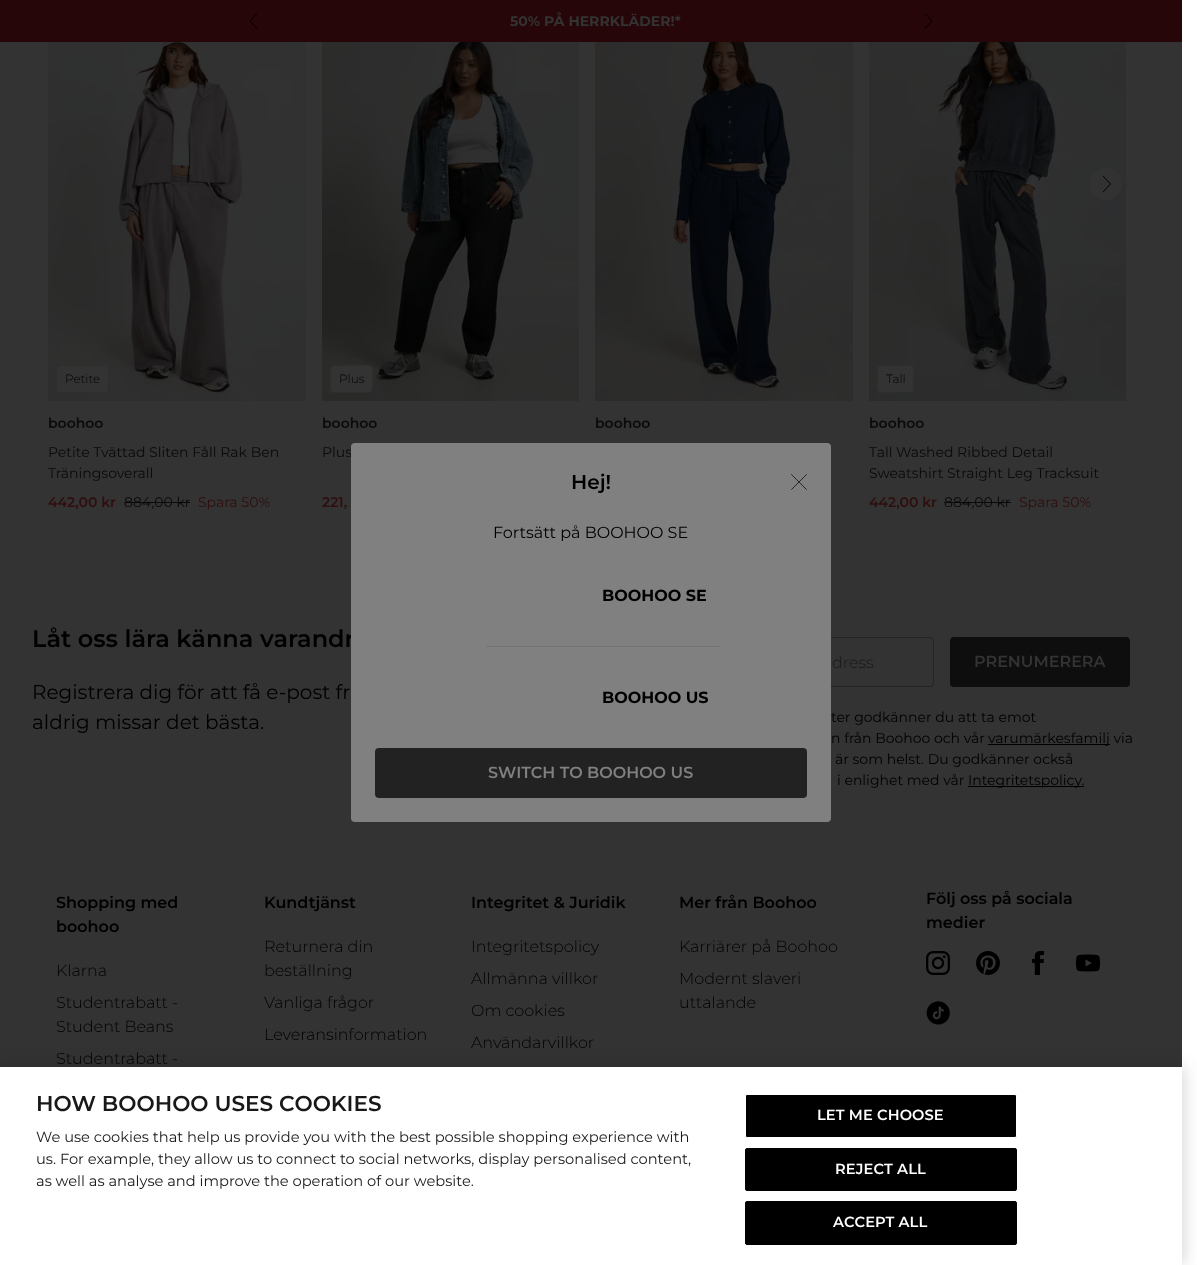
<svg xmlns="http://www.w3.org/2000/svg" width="1197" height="1265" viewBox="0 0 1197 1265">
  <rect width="100%" height="100%" fill="#fff"/>
  <path d="M0 42h1182v1025H0z" fill="#333"/>
  <path d="M0 0h1182v42H0z" fill="#260609"/>
  <path d="M257 13.5L250 21L257 28.5" fill="none" stroke="#000" stroke-linecap="round"/>
  <path d="M925 28.5L932 21L925 13.5" fill="none" stroke="#000" stroke-linecap="round"/>
  <image x="869" y="42" width="257" height="359" href="img/4.png"/>
  <circle cx="1106" cy="184" r="16" fill="#333333e6"/>
  <path d="M1103.5 191.5L1110.5 184L1103.5 176.5" fill="none" stroke="#000" stroke-linecap="round"/>
  <image x="48" y="42" width="258" height="359" href="img/1.png"/>
  <rect x="56.5" y="365.5" width="52" height="27" rx="3.5" fill="#333" stroke="#2e2e2e"/>
  <path d="M124 502h66v1H124z" fill="#0a0a0a"/>
  <image x="322" y="42" width="257" height="359" href="img/2.png"/>
  <rect x="330.5" y="365.5" width="42" height="27" rx="3.5" fill="#333" stroke="#2e2e2e"/>
  <image x="595" y="42" width="258" height="359" href="img/3.png"/>
  <rect x="877.5" y="365.5" width="36" height="27" rx="3.5" fill="#333" stroke="#2e2e2e"/>
  <path d="M944 502h67v1H944z" fill="#0a0a0a"/>
  <rect x="607.5" y="637.5" width="326" height="49" rx="3.5" fill="none" stroke="#242424"/>
  <rect x="950" y="637" width="180" height="50" rx="4" fill="#0e0e0e"/>
  <path d="M988 744h122v1H988z" fill="#000"/>
  <path d="M968 786h116v1H968z" fill="#000"/>
  <image x="926" y="951" width="24" height="24" href="img/5.png"/>
  <image x="976" y="951" width="24" height="24" href="img/6.png"/>
  <image x="1032" y="951" width="12" height="24" href="img/7.png"/>
  <image x="1076" y="954" width="24" height="18" href="img/8.png"/>
  <image x="926" y="1001" width="24" height="24" href="img/9.png"/>
  <path d="M0 1067h1182v198H0z" fill="#00000033" filter="blur(9px)"/>
  <path d="M0 1067h1182v198H0z" fill="#fff"/>
  <rect x="745.5" y="1094.5" width="271" height="43" rx="1.5" fill="#000" stroke="#fff"/>
  <rect x="745.5" y="1148.5" width="271" height="42" rx="1.5" fill="#000" stroke="#000"/>
  <rect x="745.5" y="1201.5" width="271" height="43" rx="1.5" fill="#000" stroke="#000"/>
  <text x="510" y="26" font-family="'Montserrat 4'" font-size="14" font-weight="100" fill="#333">50% PÅ HERRKLÄDER!*</text>
  <text x="65" y="383" font-family="'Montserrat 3'" font-size="12" font-weight="100" fill="#000">Petite</text>
  <text x="48" y="428" font-family="Montserrat" font-size="14" font-weight="100" fill="#0a0a0a">boohoo</text>
  <g font-family="'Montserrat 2'" font-size="14" font-weight="100" fill="#0a0a0a">
    <text x="48" y="457">Petite Tvättad Sliten Fåll Rak Ben</text>
    <text x="48" y="478">Träningsoverall</text>
  </g>
  <text x="48" y="507" font-family="Montserrat" font-size="14" font-weight="100" fill="#300e0e">442,00 kr</text>
  <text x="124" y="507" font-family="'Montserrat 2'" font-size="14" font-weight="100" fill="#0a0a0a">884,00 kr</text>
  <text x="198" y="507" font-family="'Montserrat 2'" font-size="14" font-weight="100" fill="#300e0e">Spara 50%</text>
  <text x="339" y="383" font-family="'Montserrat 3'" font-size="12" font-weight="100" fill="#000">Plus</text>
  <text x="322" y="428" font-family="Montserrat" font-size="14" font-weight="100" fill="#0a0a0a">boohoo</text>
  <text x="322" y="457" font-family="'Montserrat 2'" font-size="14" font-weight="100" fill="#0a0a0a">Plus</text>
  <text x="322" y="507" font-family="Montserrat" font-size="14" font-weight="100" fill="#300e0e">221,</text>
  <text x="595" y="428" font-family="Montserrat" font-size="14" font-weight="100" fill="#0a0a0a">boohoo</text>
  <text x="886" y="383" font-family="'Montserrat 3'" font-size="12" font-weight="100" fill="#000">Tall</text>
  <text x="869" y="428" font-family="Montserrat" font-size="14" font-weight="100" fill="#0a0a0a">boohoo</text>
  <g font-family="'Montserrat 2'" font-size="14" font-weight="100" fill="#0a0a0a">
    <text x="869" y="457">Tall Washed Ribbed Detail</text>
    <text x="869" y="478">Sweatshirt Straight Leg Tracksuit</text>
  </g>
  <text x="869" y="507" font-family="Montserrat" font-size="14" font-weight="100" fill="#300e0e">442,00 kr</text>
  <text x="944" y="507" font-family="'Montserrat 2'" font-size="14" font-weight="100" fill="#0a0a0a">884,00 kr</text>
  <text x="1019" y="507" font-family="'Montserrat 2'" font-size="14" font-weight="100" fill="#300e0e">Spara 50%</text>
  <text x="32" y="647" font-family="Montserrat" font-size="24" font-weight="100" fill="#000">Låt oss lära känna varandr</text>
  <g font-family="'Montserrat 2'" font-size="20" font-weight="100" fill="#000">
    <text x="32" y="699">Registrera dig för att få e-post fr</text>
    <text x="32" y="729">aldrig missar det bästa.</text>
  </g>
  <text x="832" y="668" font-family="'Montserrat 3'" font-size="16" font-weight="100" fill="#181818">dress</text>
  <text x="974" y="667" font-family="Montserrat" font-size="16" font-weight="100" fill="#333">PRENUMERERA</text>
  <g font-family="'Montserrat 2'" font-size="14" font-weight="100" fill="#000">
    <text x="831" y="722">ter godkänner du att ta emot</text>
    <text x="831" y="743">n från Boohoo och vår</text>
    <text x="988" y="743">varumärkesfamilj via</text>
    <text x="835" y="764">är som helst. Du godkänner också</text>
    <text x="837" y="785">i enlighet med vår</text>
    <text x="968" y="785">Integritetspolicy.</text>
  </g>
  <g font-family="Montserrat" font-size="16" font-weight="100" fill="#000">
    <text x="56" y="908">Shopping med</text>
    <text x="56" y="932">boohoo</text>
  </g>
  <g font-family="'Montserrat 3'" font-size="16" font-weight="100" fill="#000">
    <text x="56" y="976">Klarna</text>
    <text x="56" y="1008">Studentrabatt -</text>
    <text x="56" y="1032">Student Beans</text>
    <text x="56" y="1064">Studentrabatt -</text>
  </g>
  <text x="264" y="908" font-family="Montserrat" font-size="16" font-weight="100" fill="#000">Kundtjänst</text>
  <g font-family="'Montserrat 3'" font-size="16" font-weight="100" fill="#000">
    <text x="264" y="952">Returnera din</text>
    <text x="264" y="976">beställning</text>
    <text x="264" y="1008">Vanliga frågor</text>
    <text x="264" y="1040">Leveransinformation</text>
  </g>
  <text x="471" y="908" font-family="Montserrat" font-size="16" font-weight="100" fill="#000">Integritet &amp; Juridik</text>
  <g font-family="'Montserrat 3'" font-size="16" font-weight="100" fill="#000">
    <text x="471" y="952">Integritetspolicy</text>
    <text x="471" y="984">Allmänna villkor</text>
    <text x="471" y="1016">Om cookies</text>
    <text x="471" y="1048">Användarvillkor</text>
  </g>
  <text x="679" y="908" font-family="Montserrat" font-size="16" font-weight="100" fill="#000">Mer från Boohoo</text>
  <g font-family="'Montserrat 3'" font-size="16" font-weight="100" fill="#000">
    <text x="679" y="952">Karriärer på Boohoo</text>
    <text x="679" y="984">Modernt slaveri</text>
    <text x="679" y="1008">uttalande</text>
  </g>
  <g font-family="Montserrat" font-size="16" font-weight="100" fill="#000">
    <text x="926" y="904">Följ oss på sociala</text>
    <text x="926" y="928">medier</text>
  </g>
  <rect x="351" y="443" width="480" height="379" rx="4" fill="#808080"/>
  <text x="571" y="489" font-family="Montserrat" font-size="20" font-weight="100" fill="#000">Hej!</text>
  <path d="M806.5 474.5L791.5 489.5M791.5 474.5L806.5 489.5" fill="none" stroke="#000" stroke-width="0.7" stroke-linecap="round"/>
  <text x="493" y="538" font-family="'Montserrat 2'" font-size="16" font-weight="100" fill="#000">Fortsätt på BOOHOO SE</text>
  <text x="602" y="601" font-family="'Montserrat 4'" font-size="16" font-weight="100" fill="#000">BOOHOO SE</text>
  <path d="M486 646h234v1H486z" fill="#747474"/>
  <text x="602" y="703" font-family="'Montserrat 4'" font-size="16" font-weight="100" fill="#000">BOOHOO US</text>
  <rect x="375" y="748" width="432" height="50" rx="4" fill="#222"/>
  <text x="488" y="778" font-family="Montserrat" font-size="16" font-weight="100" fill="#808080">SWITCH TO BOOHOO US</text>
  <text x="36" y="1111" font-family="Montserrat" font-size="21.6" font-weight="100" fill="#181818">HOW BOOHOO USES COOKIES</text>
  <g font-family="'Montserrat 2'" font-size="14.65" font-weight="100" fill="#181818">
    <text x="36" y="1142">We use cookies that help us provide you with the best possible shopping experience with</text>
    <text x="36" y="1164">us. For example, they allow us to connect to social networks, display personalised content,</text>
    <text x="36" y="1186">as well as analyse and improve the operation of our website.</text>
  </g>
  <g font-family="Montserrat" font-size="14.65" font-weight="100" letter-spacing="0.1" fill="#fff">
    <text x="817" y="1120">LET ME CHOOSE</text>
    <text x="835" y="1174">REJECT ALL</text>
    <text x="833" y="1227">ACCEPT ALL</text>
  </g>
</svg>
